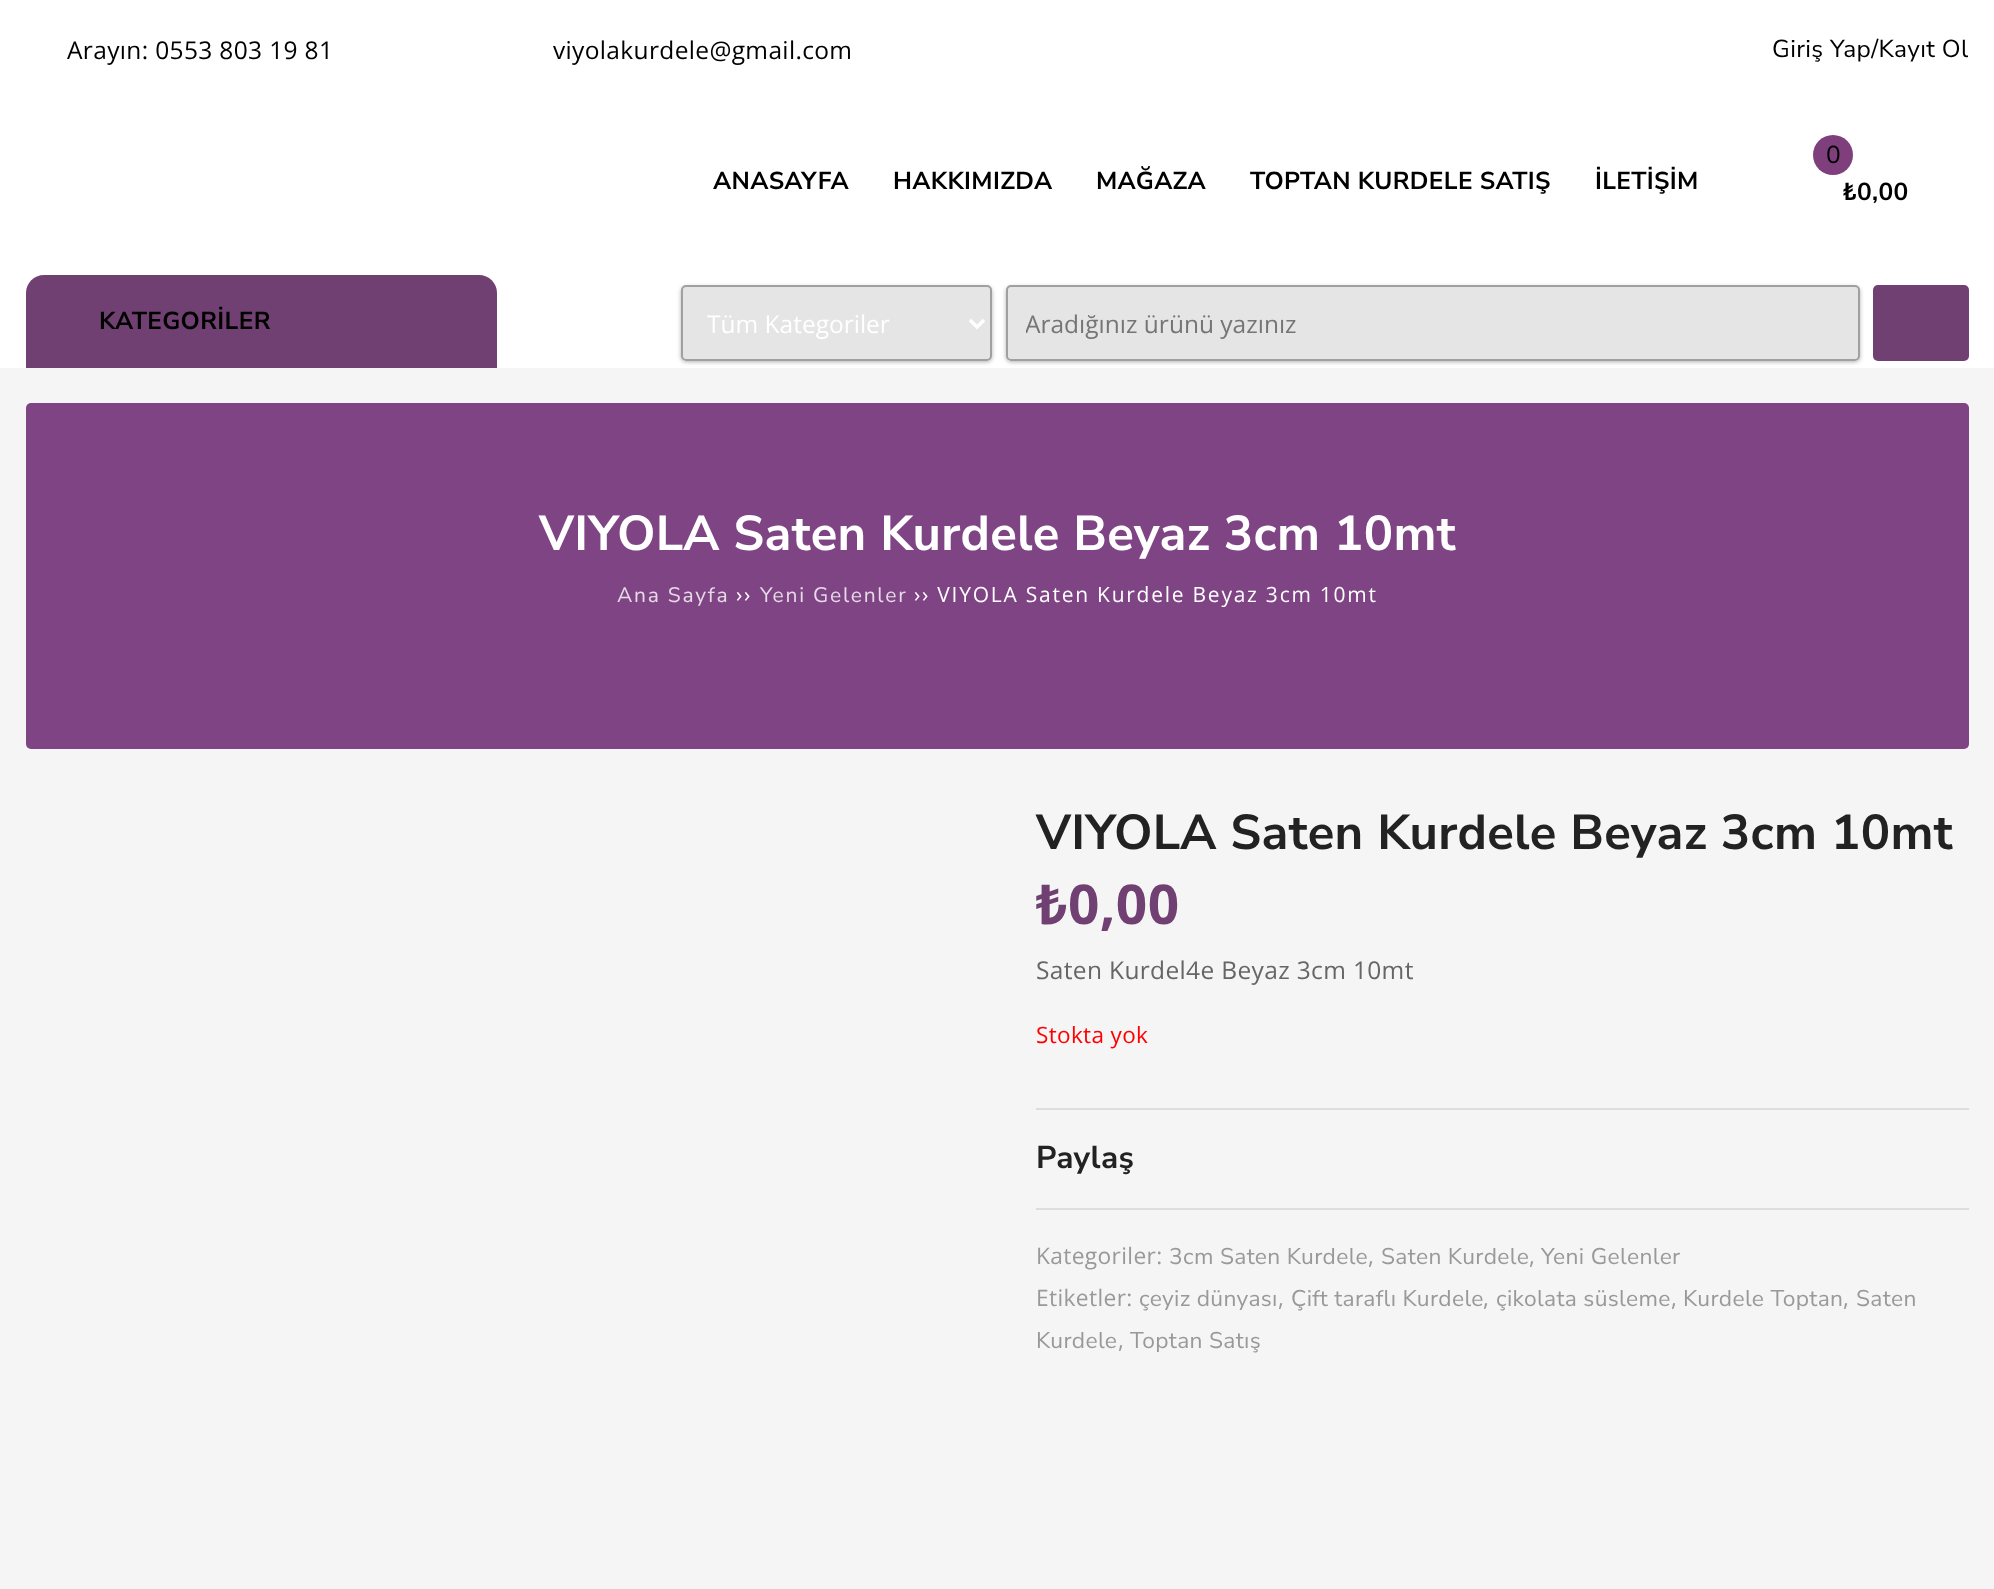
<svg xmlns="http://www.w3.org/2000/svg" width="1994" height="1589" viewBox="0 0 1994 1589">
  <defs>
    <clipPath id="clip1"><path d="M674 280H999V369H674ZM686 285H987C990 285 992 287 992 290V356C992 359 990 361 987 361H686C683 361 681 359 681 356V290C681 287 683 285 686 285Z" clip-rule="evenodd"/></clipPath>
    <clipPath id="clip2"><path d="M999 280H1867V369H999ZM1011 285H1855C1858 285 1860 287 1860 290V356C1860 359 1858 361 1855 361H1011C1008 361 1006 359 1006 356V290C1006 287 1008 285 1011 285Z" clip-rule="evenodd"/></clipPath>
    <clipPath id="clip3"><path d="M707 305h238v36H707z"/></clipPath>
    <clipPath id="clip4"><path d="M1026 306h791v34H1026z"/></clipPath>
  </defs>
  <rect width="100%" height="100%" fill="#f5f5f5"/>
  <path d="M0 0h1994v368H0z" fill="#fff"/>
  <circle cx="1833" cy="155" r="20" fill="#7f3f7c"/>
  <path d="M44 275H479C489 275 497 283 497 293V368H26V293C26 283 34 275 44 275Z" fill="#714072"/>
  <g clip-path="url(#clip1)">
    <rect x="681" y="287" width="311" height="75" rx="5" fill="#0000004d" filter="blur(2px)"/>
  </g>
  <rect x="681" y="285" width="311" height="76" rx="5" fill="#0000001a"/>
  <rect x="682" y="286" width="309" height="74" rx="4" fill="none" stroke="#0000004d" stroke-width="2"/>
  <path d="M970 320L977 327L984 320" fill="none" stroke="#fff" stroke-width="3.5"/>
  <g clip-path="url(#clip2)">
    <rect x="1006" y="287" width="854" height="75" rx="5" fill="#0000004d" filter="blur(2px)"/>
  </g>
  <rect x="1006" y="285" width="854" height="76" rx="5" fill="#0000001a"/>
  <rect x="1007" y="286" width="852" height="74" rx="4" fill="none" stroke="#0000004d" stroke-width="2"/>
  <rect x="1873" y="285" width="96" height="76" rx="5" fill="#714072"/>
  <rect x="26" y="403" width="1943" height="346" rx="5" fill="#7f4484"/>
  <path d="M1036 1108h933v2H1036z" fill="#ddd"/>
  <path d="M1036 1208h933v2H1036z" fill="#ddd"/>
  <g font-family="Open Sans" font-size="24.5" letter-spacing="0.35" fill="#000">
    <text x="67" y="59">Arayın: 0553 803 19 81</text>
    <text x="553" y="59">viyolakurdele@gmail.com</text>
  </g>
  <text x="1772" y="57" font-family="Nunito Sans" font-size="24.5" letter-spacing="0.35" fill="#000">Giriş Yap/Kayıt Ol</text>
  <g font-family="Nunito Sans" font-size="24.5" font-weight="bold" letter-spacing="0.35" fill="#000">
    <text x="713" y="189">ANASAYFA</text>
    <text x="893" y="189">HAKKIMIZDA</text>
    <text x="1096" y="189">MAĞAZA</text>
    <text x="1250" y="189">TOPTAN KURDELE SATIŞ</text>
    <text x="1595" y="189">İLETİŞİM</text>
  </g>
  <text x="1826" y="163" font-family="Nunito Sans" font-size="24.5" letter-spacing="0.35" fill="#000">0</text>
  <g font-family="Nunito Sans" font-size="24.5" font-weight="bold" letter-spacing="0.35" fill="#000">
    <text x="1842" y="200">₺</text>
    <text x="1857" y="200">0,00</text>
    <text x="99" y="329">KATEGORİLER</text>
  </g>
  <g clip-path="url(#clip3)">
    <text x="707" y="333" font-family="Open Sans" font-size="24.5" fill="#fff">Tüm Kategoriler</text>
  </g>
  <g clip-path="url(#clip4)">
    <text x="1025" y="333" font-family="Open Sans" font-size="24.5" fill="#757575">Aradığınız ürünü yazınız</text>
  </g>
  <text x="539" y="550" font-family="Nunito Sans" font-size="49" font-weight="bold" letter-spacing="0.35" fill="#fff">VIYOLA Saten Kurdele Beyaz 3cm 10mt</text>
  <text x="617" y="602" font-family="Nunito Sans" font-size="21" letter-spacing="1.75" fill="#e5dae6">Ana Sayfa</text>
  <text x="736" y="602" font-family="Open Sans" font-size="21" letter-spacing="1.75" fill="#fff">››</text>
  <text x="760" y="602" font-family="Nunito Sans" font-size="21" letter-spacing="1.75" fill="#e5dae6">Yeni Gelenler</text>
  <text x="914" y="602" font-family="Open Sans" font-size="21" letter-spacing="1.75" fill="#fff">›› VIYOLA Saten Kurdele Beyaz 3cm 10mt</text>
  <text x="1036" y="849" font-family="Nunito Sans" font-size="49" font-weight="bold" letter-spacing="0.35" fill="#222">VIYOLA Saten Kurdele Beyaz 3cm 10mt</text>
  <text x="1036" y="924" font-family="Noto Sans" font-size="55" font-weight="bold" letter-spacing="0.35" fill="#714072">₺</text>
  <text x="1068" y="924" font-family="Open Sans" font-size="55" font-weight="bold" letter-spacing="0.35" fill="#714072">0,00</text>
  <text x="1036" y="979" font-family="Open Sans" font-size="24.5" letter-spacing="0.35" fill="#666">Saten Kurdel4e Beyaz 3cm 10mt</text>
  <text x="1036" y="1043" font-family="Open Sans" font-size="22.5" letter-spacing="0.35" fill="#f00">Stokta yok</text>
  <text x="1036" y="1168" font-family="Nunito Sans" font-size="31.5" font-weight="bold" letter-spacing="0.35" fill="#222">Paylaş</text>
  <text x="1036" y="1264" font-family="Open Sans" font-size="22.75" letter-spacing="0.35" fill="#999">Kategoriler:</text>
  <text x="1169" y="1264" font-family="Nunito Sans" font-size="22.75" letter-spacing="0.35" fill="#999">3cm Saten Kurdele</text>
  <text x="1368" y="1264" font-family="Open Sans" font-size="22.75" letter-spacing="0.35" fill="#999">,</text>
  <text x="1381" y="1264" font-family="Nunito Sans" font-size="22.75" letter-spacing="0.35" fill="#999">Saten Kurdele</text>
  <text x="1529" y="1264" font-family="Open Sans" font-size="22.75" letter-spacing="0.35" fill="#999">,</text>
  <text x="1541" y="1264" font-family="Nunito Sans" font-size="22.75" letter-spacing="0.35" fill="#999">Yeni Gelenler</text>
  <text x="1036" y="1306" font-family="Open Sans" font-size="22.75" letter-spacing="0.35" fill="#999">Etiketler:</text>
  <text x="1139" y="1306" font-family="Nunito Sans" font-size="22.75" letter-spacing="0.35" fill="#999">çeyiz dünyası</text>
  <text x="1278" y="1306" font-family="Open Sans" font-size="22.75" letter-spacing="0.35" fill="#999">,</text>
  <text x="1291" y="1306" font-family="Nunito Sans" font-size="22.75" letter-spacing="0.35" fill="#999">Çift taraflı Kurdele</text>
  <text x="1483" y="1306" font-family="Open Sans" font-size="22.75" letter-spacing="0.35" fill="#999">,</text>
  <text x="1496" y="1306" font-family="Nunito Sans" font-size="22.75" letter-spacing="0.35" fill="#999">çikolata süsleme</text>
  <text x="1671" y="1306" font-family="Open Sans" font-size="22.75" letter-spacing="0.35" fill="#999">,</text>
  <text x="1683" y="1306" font-family="Nunito Sans" font-size="22.75" letter-spacing="0.35" fill="#999">Kurdele Toptan</text>
  <text x="1843" y="1306" font-family="Open Sans" font-size="22.75" letter-spacing="0.35" fill="#999">,</text>
  <g font-family="Nunito Sans" font-size="22.75" letter-spacing="0.35" fill="#999">
    <text x="1856" y="1306">Saten</text>
    <text x="1036" y="1348">Kurdele</text>
  </g>
  <text x="1118" y="1348" font-family="Open Sans" font-size="22.75" letter-spacing="0.35" fill="#999">,</text>
  <text x="1130" y="1348" font-family="Nunito Sans" font-size="22.75" letter-spacing="0.35" fill="#999">Toptan Satış</text>
</svg>
